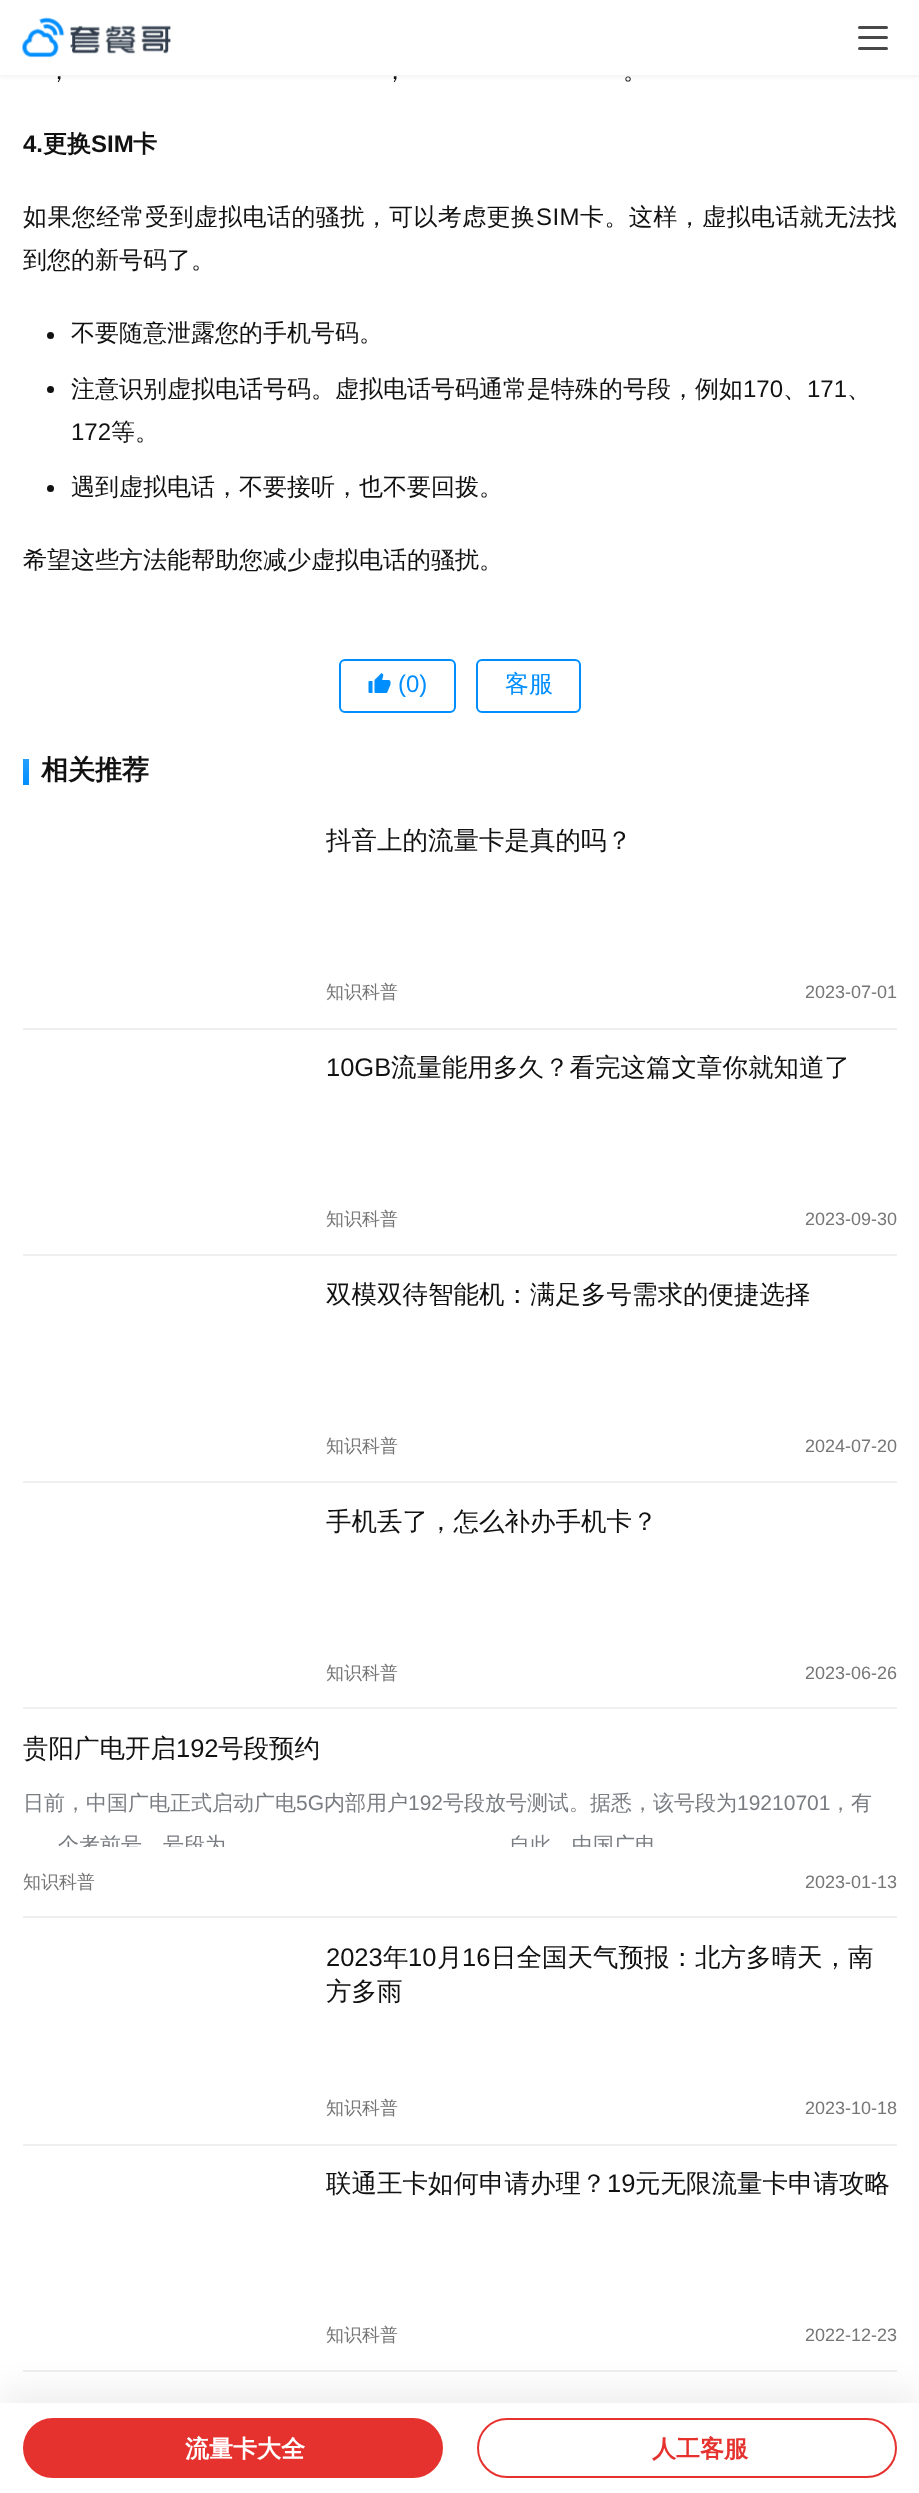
<svg xmlns="http://www.w3.org/2000/svg" width="919" height="2493" viewBox="0 0 919 2493">
  <defs>
    <linearGradient id="g1" gradientUnits="userSpaceOnUse" x1="26" y1="759" x2="26" y2="785"><stop offset="0" stop-color="#269fff"/><stop offset="1" stop-color="#008eff"/></linearGradient>
    <clipPath id="clip1"><path d="M23 1781h874v66H23z"/></clipPath>
  </defs>
  <rect width="100%" height="100%" fill="#fff"/>
  <path d="M-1 -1h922v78H-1z" fill="#1a1a1a0f" filter="blur(2px)"/>
  <path d="M0 0h919v75H0z" fill="#fff"/>
  <image x="22" y="17" width="149" height="41" href="img/1.png"/>
  <rect x="858" y="26" width="30" height="3" rx="1.5" fill="#484848"/>
  <rect x="858" y="36" width="30" height="3" rx="1.5" fill="#484848"/>
  <rect x="858" y="47" width="30" height="3" rx="1.5" fill="#484848"/>
  <circle cx="50.5" cy="335.5" r="3.5" fill="#111"/>
  <circle cx="50.5" cy="389.5" r="3.5" fill="#111"/>
  <circle cx="50.5" cy="488.5" r="3.5" fill="#111"/>
  <rect x="340" y="660" width="115" height="52" rx="5" fill="none" stroke="#008eff" stroke-width="2"/>
  <image x="368" y="673" width="23" height="20" href="img/2.png"/>
  <rect x="477" y="660" width="103" height="52" rx="5" fill="none" stroke="#008eff" stroke-width="2"/>
  <path d="M23 759h6v26H23z" fill="url(#g1)"/>
  <path d="M23 1028h874v2H23z" fill="#efefef"/>
  <path d="M23 1254h874v2H23z" fill="#efefef"/>
  <path d="M23 1481h874v2H23z" fill="#efefef"/>
  <path d="M23 1707h874v2H23z" fill="#efefef"/>
  <path d="M23 1916h874v2H23z" fill="#efefef"/>
  <path d="M23 2144h874v2H23z" fill="#efefef"/>
  <path d="M23 2370h874v2H23z" fill="#efefef"/>
  <path d="M0 2388h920v90H0z" fill="#0000000f" filter="blur(15px)"/>
  <path d="M0 2403h919v89H0z" fill="#fff"/>
  <rect x="24" y="2419" width="418" height="58" rx="29" fill="#e6322e" stroke="#e6322e" stroke-width="2"/>
  <rect x="478" y="2419" width="418" height="58" rx="29" fill="none" stroke="#e6322e" stroke-width="2"/>
  <g font-family="WenQuanYi Zen Hei" font-size="24" font-weight="500" fill="#111">
    <text x="47" y="79">，</text>
    <text x="383" y="79">，</text>
    <text x="623" y="79">。</text>
  </g>
  <text x="23" y="152" font-family="Liberation Sans" font-size="24" font-weight="bold" fill="#111">4.</text>
  <text x="43" y="152" font-family="WenQuanYi Zen Hei" font-size="24" font-weight="bold" fill="#111">更换</text>
  <text x="91" y="152" font-family="Liberation Sans" font-size="24" font-weight="bold" fill="#111">SIM</text>
  <text x="133" y="152" font-family="WenQuanYi Zen Hei" font-size="24" font-weight="bold" fill="#111">卡</text>
  <text x="23" y="225" font-family="WenQuanYi Zen Hei" font-size="24" font-weight="500" letter-spacing="0.4" fill="#111">如果您经常受到虚拟电话的骚扰，可以考虑更换</text>
  <text x="536" y="225" font-family="Liberation Sans" font-size="24" letter-spacing="0.4" fill="#111">SIM</text>
  <text x="580" y="225" font-family="WenQuanYi Zen Hei" font-size="24" font-weight="500" letter-spacing="0.4" fill="#111">卡。这样，虚拟电话就无法找</text>
  <g font-family="WenQuanYi Zen Hei" font-size="24" font-weight="500" fill="#111">
    <text x="23" y="268">到您的新号码了。</text>
    <text x="71" y="341">不要随意泄露您的手机号码。</text>
    <text x="71" y="397">注意识别虚拟电话号码。虚拟电话号码通常是特殊的号段，例如</text>
  </g>
  <g font-family="Liberation Sans" font-size="24" fill="#111">
    <text x="743" y="397">170</text>
    <text x="807" y="397">171</text>
  </g>
  <g font-family="WenQuanYi Zen Hei" font-size="24" font-weight="500" fill="#111">
    <text x="783" y="397">、</text>
    <text x="847" y="397">、</text>
  </g>
  <text x="71" y="440" font-family="Liberation Sans" font-size="24" fill="#111">172</text>
  <g font-family="WenQuanYi Zen Hei" font-size="24" font-weight="500" fill="#111">
    <text x="111" y="440">等。</text>
    <text x="71" y="495">遇到虚拟电话，不要接听，也不要回拨。</text>
    <text x="23" y="568">希望这些方法能帮助您减少虚拟电话的骚扰。</text>
  </g>
  <text x="398" y="692" font-family="Liberation Sans" font-size="24" fill="#008eff">(0)</text>
  <text x="505" y="692" font-family="WenQuanYi Zen Hei" font-size="24" font-weight="500" fill="#008eff">客服</text>
  <text x="41" y="779" font-family="WenQuanYi Zen Hei" font-size="27" font-weight="bold" fill="#111">相关推荐</text>
  <text x="326" y="849" font-family="WenQuanYi Zen Hei" font-size="25.5" font-weight="500" fill="#111">抖音上的流量卡是真的吗？</text>
  <text x="326" y="998" font-family="WenQuanYi Zen Hei" font-size="18" font-weight="500" fill="#767676">知识科普</text>
  <text x="805" y="998" font-family="Liberation Sans" font-size="18" fill="#767676">2023-07-01</text>
  <text x="326" y="1076" font-family="Liberation Sans" font-size="25.5" fill="#111">10GB</text>
  <text x="391" y="1076" font-family="WenQuanYi Zen Hei" font-size="25.5" font-weight="500" fill="#111">流量能用多久？看完这篇文章你就知道了</text>
  <text x="326" y="1225" font-family="WenQuanYi Zen Hei" font-size="18" font-weight="500" fill="#767676">知识科普</text>
  <text x="805" y="1225" font-family="Liberation Sans" font-size="18" fill="#767676">2023-09-30</text>
  <text x="326" y="1303" font-family="WenQuanYi Zen Hei" font-size="25.5" font-weight="500" fill="#111">双模双待智能机：满足多号需求的便捷选择</text>
  <text x="326" y="1452" font-family="WenQuanYi Zen Hei" font-size="18" font-weight="500" fill="#767676">知识科普</text>
  <text x="805" y="1452" font-family="Liberation Sans" font-size="18" fill="#767676">2024-07-20</text>
  <text x="326" y="1530" font-family="WenQuanYi Zen Hei" font-size="25.5" font-weight="500" fill="#111">手机丢了，怎么补办手机卡？</text>
  <text x="326" y="1679" font-family="WenQuanYi Zen Hei" font-size="18" font-weight="500" fill="#767676">知识科普</text>
  <text x="805" y="1679" font-family="Liberation Sans" font-size="18" fill="#767676">2023-06-26</text>
  <text x="23" y="1757" font-family="WenQuanYi Zen Hei" font-size="25.5" font-weight="500" fill="#111">贵阳广电开启</text>
  <text x="176" y="1757" font-family="Liberation Sans" font-size="25.5" fill="#111">192</text>
  <text x="218" y="1757" font-family="WenQuanYi Zen Hei" font-size="25.5" font-weight="500" fill="#111">号段预约</text>
  <text x="23" y="1810" font-family="WenQuanYi Zen Hei" font-size="21" font-weight="500" fill="#797c80">日前，中国广电正式启动广电</text>
  <text x="296" y="1810" font-family="Liberation Sans" font-size="21" fill="#797c80">5G</text>
  <text x="324" y="1810" font-family="WenQuanYi Zen Hei" font-size="21" font-weight="500" fill="#797c80">内部用户</text>
  <text x="408" y="1810" font-family="Liberation Sans" font-size="21" fill="#797c80">192</text>
  <text x="443" y="1810" font-family="WenQuanYi Zen Hei" font-size="21" font-weight="500" fill="#797c80">号段放号测试。据悉，该号段为</text>
  <text x="737" y="1810" font-family="Liberation Sans" font-size="21" fill="#797c80">19210701</text>
  <text x="830" y="1810" font-family="WenQuanYi Zen Hei" font-size="21" font-weight="500" fill="#797c80">，有</text>
  <g clip-path="url(#clip1)">
    <g font-family="WenQuanYi Zen Hei" font-size="21" font-weight="500" fill="#797c80">
      <text x="58" y="1852">个考前号，号段为</text>
      <text x="509" y="1852">自此，中国广电</text>
    </g>
  </g>
  <text x="23" y="1888" font-family="WenQuanYi Zen Hei" font-size="18" font-weight="500" fill="#767676">知识科普</text>
  <text x="805" y="1888" font-family="Liberation Sans" font-size="18" fill="#767676">2023-01-13</text>
  <text x="326" y="1966" font-family="Liberation Sans" font-size="25.5" fill="#111">2023</text>
  <text x="383" y="1966" font-family="WenQuanYi Zen Hei" font-size="25.5" font-weight="500" fill="#111">年</text>
  <text x="408" y="1966" font-family="Liberation Sans" font-size="25.5" fill="#111">10</text>
  <text x="437" y="1966" font-family="WenQuanYi Zen Hei" font-size="25.5" font-weight="500" fill="#111">月</text>
  <text x="462" y="1966" font-family="Liberation Sans" font-size="25.5" fill="#111">16</text>
  <g font-family="WenQuanYi Zen Hei" font-size="25.5" font-weight="500" fill="#111">
    <text x="491" y="1966">日全国天气预报：北方多晴天，南</text>
    <text x="326" y="2000">方多雨</text>
  </g>
  <text x="326" y="2114" font-family="WenQuanYi Zen Hei" font-size="18" font-weight="500" fill="#767676">知识科普</text>
  <text x="805" y="2114" font-family="Liberation Sans" font-size="18" fill="#767676">2023-10-18</text>
  <text x="326" y="2192" font-family="WenQuanYi Zen Hei" font-size="25.5" font-weight="500" fill="#111">联通王卡如何申请办理？</text>
  <text x="607" y="2192" font-family="Liberation Sans" font-size="25.5" fill="#111">19</text>
  <text x="635" y="2192" font-family="WenQuanYi Zen Hei" font-size="25.5" font-weight="500" fill="#111">元无限流量卡申请攻略</text>
  <text x="326" y="2341" font-family="WenQuanYi Zen Hei" font-size="18" font-weight="500" fill="#767676">知识科普</text>
  <text x="805" y="2341" font-family="Liberation Sans" font-size="18" fill="#767676">2022-12-23</text>
  <text x="185" y="2457" font-family="WenQuanYi Zen Hei" font-size="24" font-weight="bold" fill="#fff">流量卡大全</text>
  <text x="652" y="2457" font-family="WenQuanYi Zen Hei" font-size="24" font-weight="bold" fill="#e6322e">人工客服</text>
</svg>
